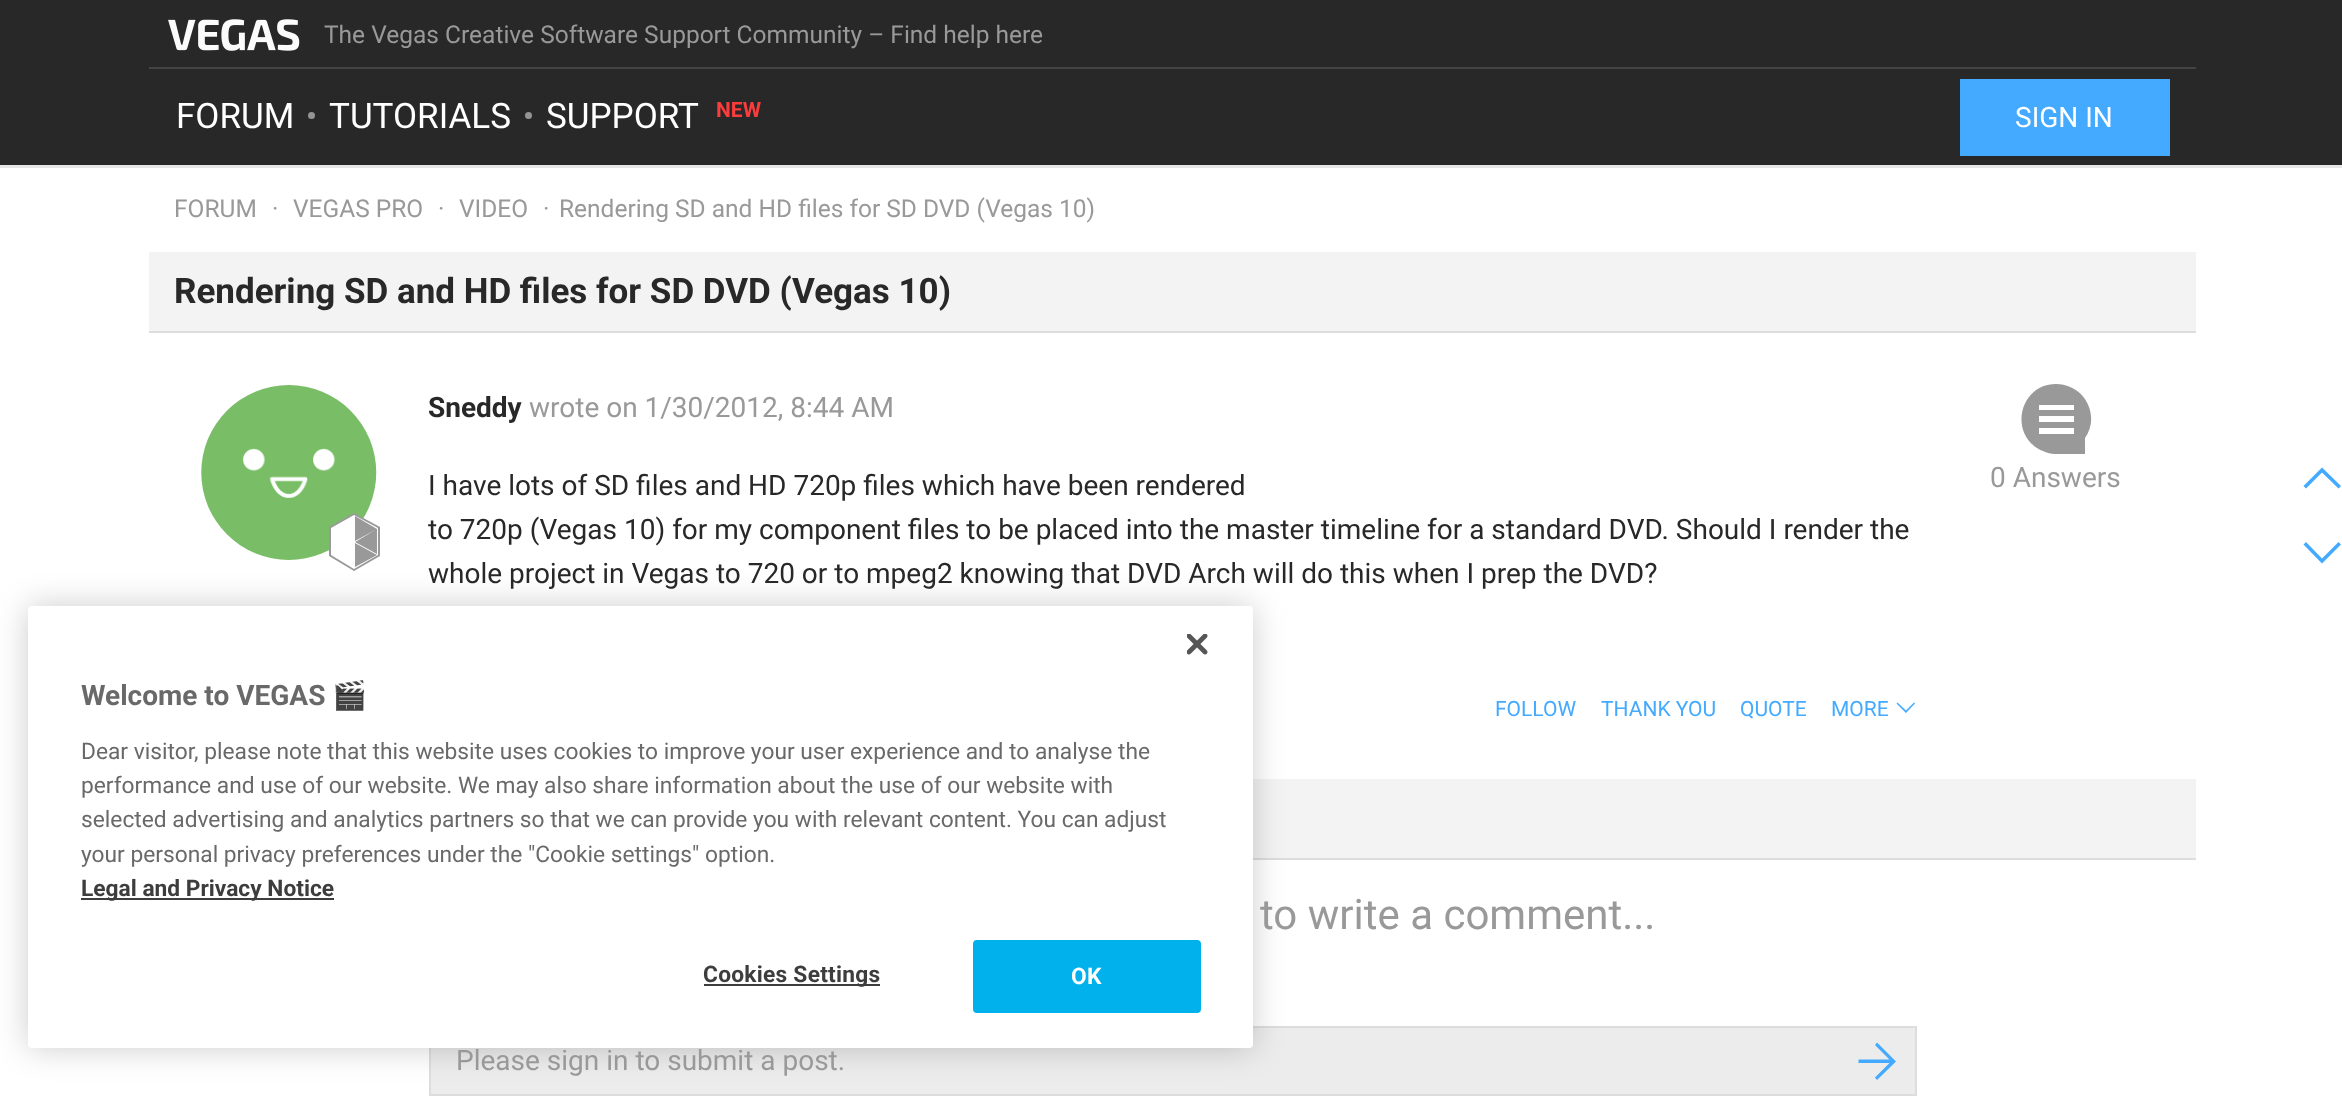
<svg xmlns="http://www.w3.org/2000/svg" width="2342" height="1103" viewBox="0 0 2342 1103">
  <rect width="100%" height="100%" fill="#fff"/>
  <path d="M0 165h2342v3H0z" fill="#e6e6e6"/>
  <path d="M0 0h2342v165H0z" fill="#282828"/>
  <image x="168" y="19" width="132" height="32" href="img/1.png"/>
  <path d="M149 67h2047v2H149z" fill="#444"/>
  <circle cx="311.5" cy="115.5" r="3.5" fill="#949494"/>
  <circle cx="528.5" cy="115.5" r="3.5" fill="#949494"/>
  <path d="M1960 79h210v77H1960z" fill="#4af"/>
  <path d="M149 252h2047v79H149z" fill="#f3f3f3"/>
  <path d="M149 331h2047v2H149z" fill="#ddd"/>
  <image x="201" y="385" width="176" height="175" href="img/2.png"/>
  <path d="M379 556V528L354 514L330 528V556L354 569Z" fill="#fff"/>
  <path d="M354 513L329 527V556L354 571L380 556V527ZM378 555L354 569L331 555V528L354 515L378 528ZM377 529L355 541V516ZM355 542L377 529V554ZM377 555L355 567V543Z" fill="#999"/>
  <path d="M1915 703.5L1914 702.5L1906 710.5L1897.5 702.5L1896.5 703.5L1906 713Z" fill="#4af"/>
  <path d="M2056 384C2018 384 2008 437 2043 451C2050 455 2058 454 2066 454H2085V438C2101 415 2084 384 2056 384ZM2074 434H2039V428H2074ZM2074 422H2039V416H2074ZM2074 410H2039V405H2074Z" fill="#999"/>
  <path d="M2303.5 486L2306 488.5L2322 472.5L2338.5 488.5L2341 486L2322 467.5Z" fill="#4af"/>
  <path d="M2341 544.5L2338.5 542L2322 558.5L2306 542L2303.5 544.5L2322 563.5Z" fill="#4af"/>
  <path d="M1253 779h943v79H1253z" fill="#f3f3f3"/>
  <path d="M1253 858h943v2H1253z" fill="#ddd"/>
  <path d="M431 1028h1484v66H431z" fill="#ececec"/>
  <path d="M1253 1026h663v2H1253z" fill="#ddd"/>
  <path d="M429 1094h1410v2H429z" fill="#ddd"/>
  <path d="M429 1048h2v48H429z" fill="#ddd"/>
  <path d="M1915 1026h2v70H1915z" fill="#ddd"/>
  <path d="M1838 1094h78v2H1838z" fill="#ddd"/>
  <path d="M1858.5 1063H1889.5L1875 1077.5L1877 1080L1896 1061.5L1877 1042.5L1875 1045L1889.5 1059.5H1858.5Z" fill="#4af"/>
  <rect x="28" y="606" width="1225" height="442" rx="4" fill="#00000033" filter="blur(16px)"/>
  <rect x="28" y="606" width="1225" height="442" rx="4" fill="#fff"/>
  <image x="1187" y="634" width="21" height="21" href="img/3.png"/>
  <path d="M81 898h253v2H81z" fill="#3d3d3d"/>
  <path d="M704 984h176v2H704z" fill="#3d3d3d"/>
  <rect x="974" y="941" width="226" height="71" rx="3" fill="#00b1ec" stroke="#00b1ec" stroke-width="2"/>
  <text x="324" y="43" font-family="Roboto" font-size="24.5" fill="#999">The Vegas Creative Software Support Community – Find help here</text>
  <g font-family="Roboto" font-size="35" fill="#fff">
    <text x="176" y="128">FORUM</text>
    <text x="329" y="128">TUTORIALS</text>
    <text x="546" y="128">SUPPORT</text>
  </g>
  <text x="716" y="117" font-family="Roboto" font-size="21" font-weight="bold" fill="#fa3c3c">NEW</text>
  <text x="2015" y="127" font-family="Roboto" font-size="28" fill="#fff">SIGN IN</text>
  <g font-family="Roboto" font-size="24.5" fill="#999">
    <text x="174" y="217">FORUM</text>
    <text x="272" y="217">·</text>
    <text x="293" y="217">VEGAS PRO</text>
    <text x="438" y="217">·</text>
    <text x="459" y="217">VIDEO</text>
    <text x="543" y="217">·</text>
    <text x="559" y="217">Rendering SD and HD files for SD DVD (Vegas 10)</text>
  </g>
  <text x="174" y="303" font-family="Roboto" font-size="35" font-weight="bold" fill="#282828">Rendering SD and HD files for SD DVD (Vegas 10)</text>
  <text x="428" y="417" font-family="Roboto" font-size="28" font-weight="bold" fill="#282828">Sneddy</text>
  <text x="529" y="417" font-family="Roboto" font-size="28" fill="#999">wrote on 1/30/2012, 8:44 AM</text>
  <g font-family="Roboto" font-size="28" fill="#282828">
    <text x="428" y="495">I have lots of SD files and HD 720p files which have been rendered</text>
    <text x="428" y="539">to 720p (Vegas 10) for my component files to be placed into the master timeline for a standard DVD. Should I render the</text>
    <text x="428" y="583">whole project in Vegas to 720 or to mpeg2 knowing that DVD Arch will do this when I prep the DVD?</text>
  </g>
  <g font-family="Roboto" font-size="21" fill="#4af">
    <text x="1495" y="716">FOLLOW</text>
    <text x="1601" y="716">THANK YOU</text>
    <text x="1740" y="716">QUOTE</text>
    <text x="1831" y="716">MORE</text>
  </g>
  <text x="1990" y="487" font-family="Roboto" font-size="28" fill="#999">0 Answers</text>
  <text x="1260" y="929" font-family="Roboto" font-size="42" fill="#999">to write a comment...</text>
  <text x="456" y="1070" font-family="Roboto" font-size="28" fill="#999">Please sign in to submit a post.</text>
  <text x="81" y="705" font-family="Roboto" font-size="28" font-weight="bold" fill="#696969">Welcome to VEGAS</text>
  <text x="332" y="705" font-family="Noto Color Emoji" font-size="28" font-weight="bold" fill="#696969">🎬</text>
  <g font-family="Roboto" font-size="22.75" fill="#696969">
    <text x="81" y="759">Dear visitor, please note that this website uses cookies to improve your user experience and to analyse the</text>
    <text x="81" y="793">performance and use of our website. We may also share information about the use of our website with</text>
    <text x="81" y="827">selected advertising and analytics partners so that we can provide you with relevant content. You can adjust</text>
    <text x="81" y="862">your personal privacy preferences under the "Cookie settings" option.</text>
  </g>
  <text x="81" y="896" font-family="Roboto" font-size="22.75" font-weight="bold" fill="#3d3d3d">Legal and Privacy Notice</text>
  <text x="703" y="982" font-family="Roboto" font-size="22.75" font-weight="bold" letter-spacing="0.25" fill="#3d3d3d">Cookies Settings</text>
  <text x="1071" y="984" font-family="Roboto" font-size="22.75" font-weight="bold" letter-spacing="0.25" fill="#fff">OK</text>
</svg>
